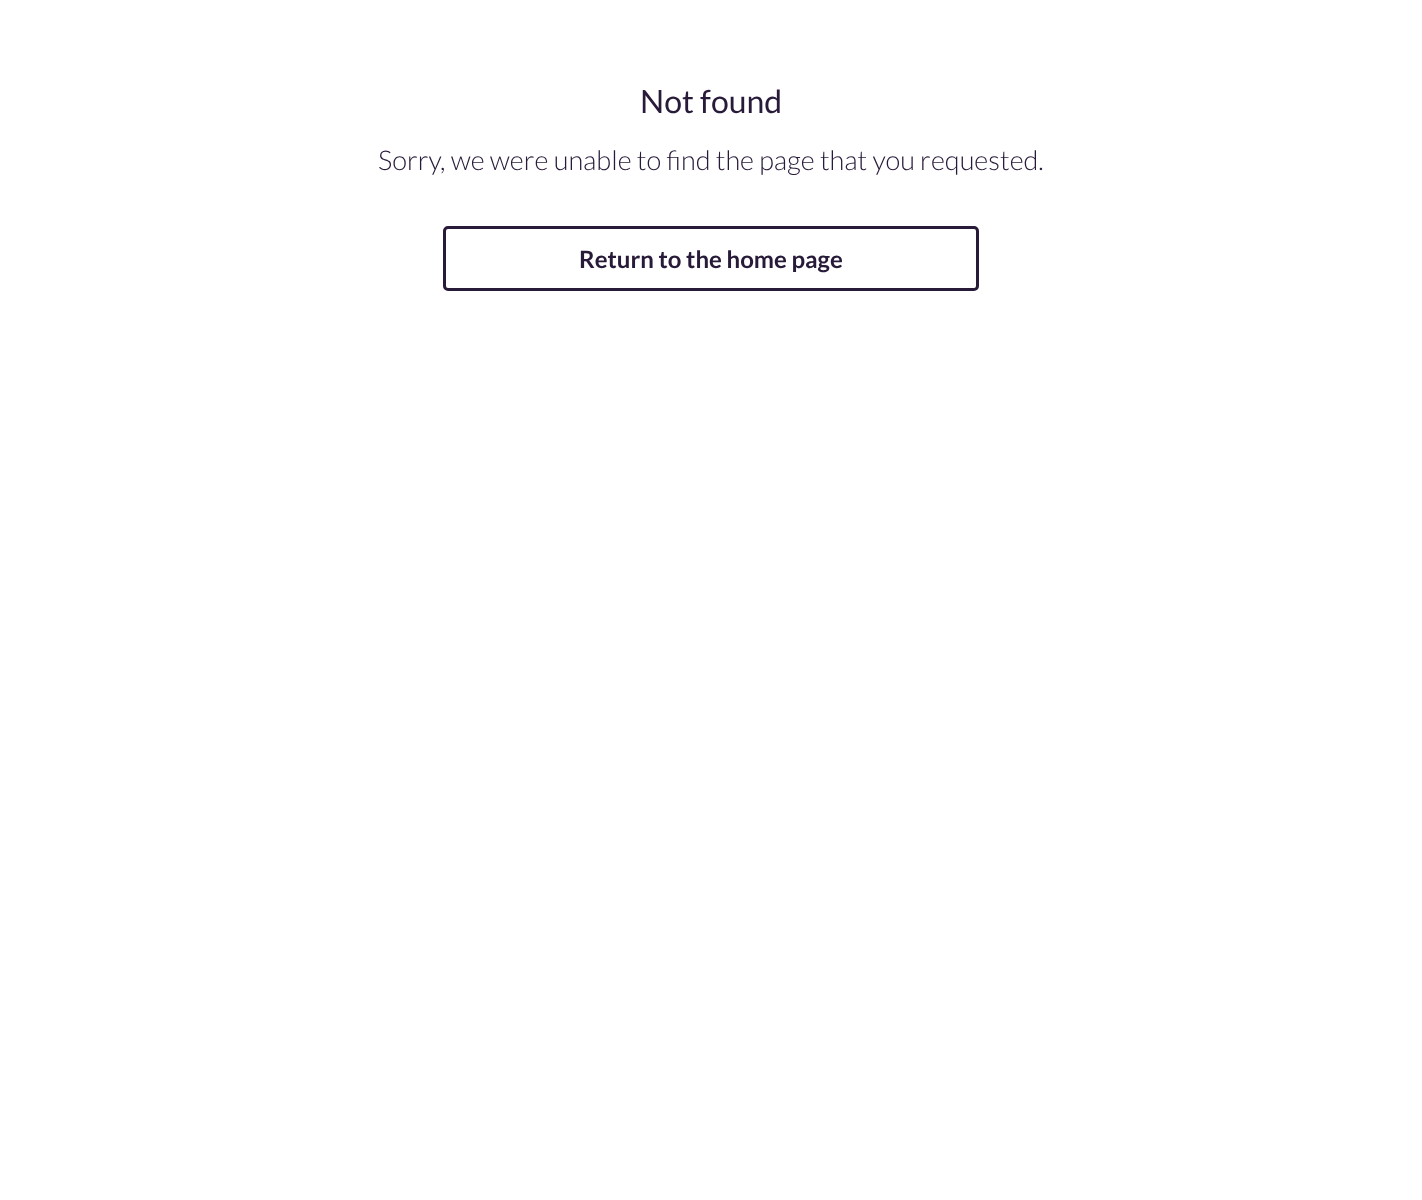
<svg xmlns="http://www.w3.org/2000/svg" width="1422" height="1200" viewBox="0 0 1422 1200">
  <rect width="100%" height="100%" fill="#fff"/>
  <rect x="444.5" y="227.5" width="533" height="62" rx="3.5" fill="none" stroke="#281a39" stroke-width="3"/>
  <text x="640" y="113" font-family="Lato" font-size="32" fill="#281a39">Not found</text>
  <text x="378" y="170" font-family="Lato" font-size="27.2" font-weight="300" fill="#281a39">Sorry, we were unable to find the page that you requested.</text>
  <text x="579" y="268" font-family="Lato" font-size="24" font-weight="bold" fill="#281a39">Return to the home page</text>
</svg>
